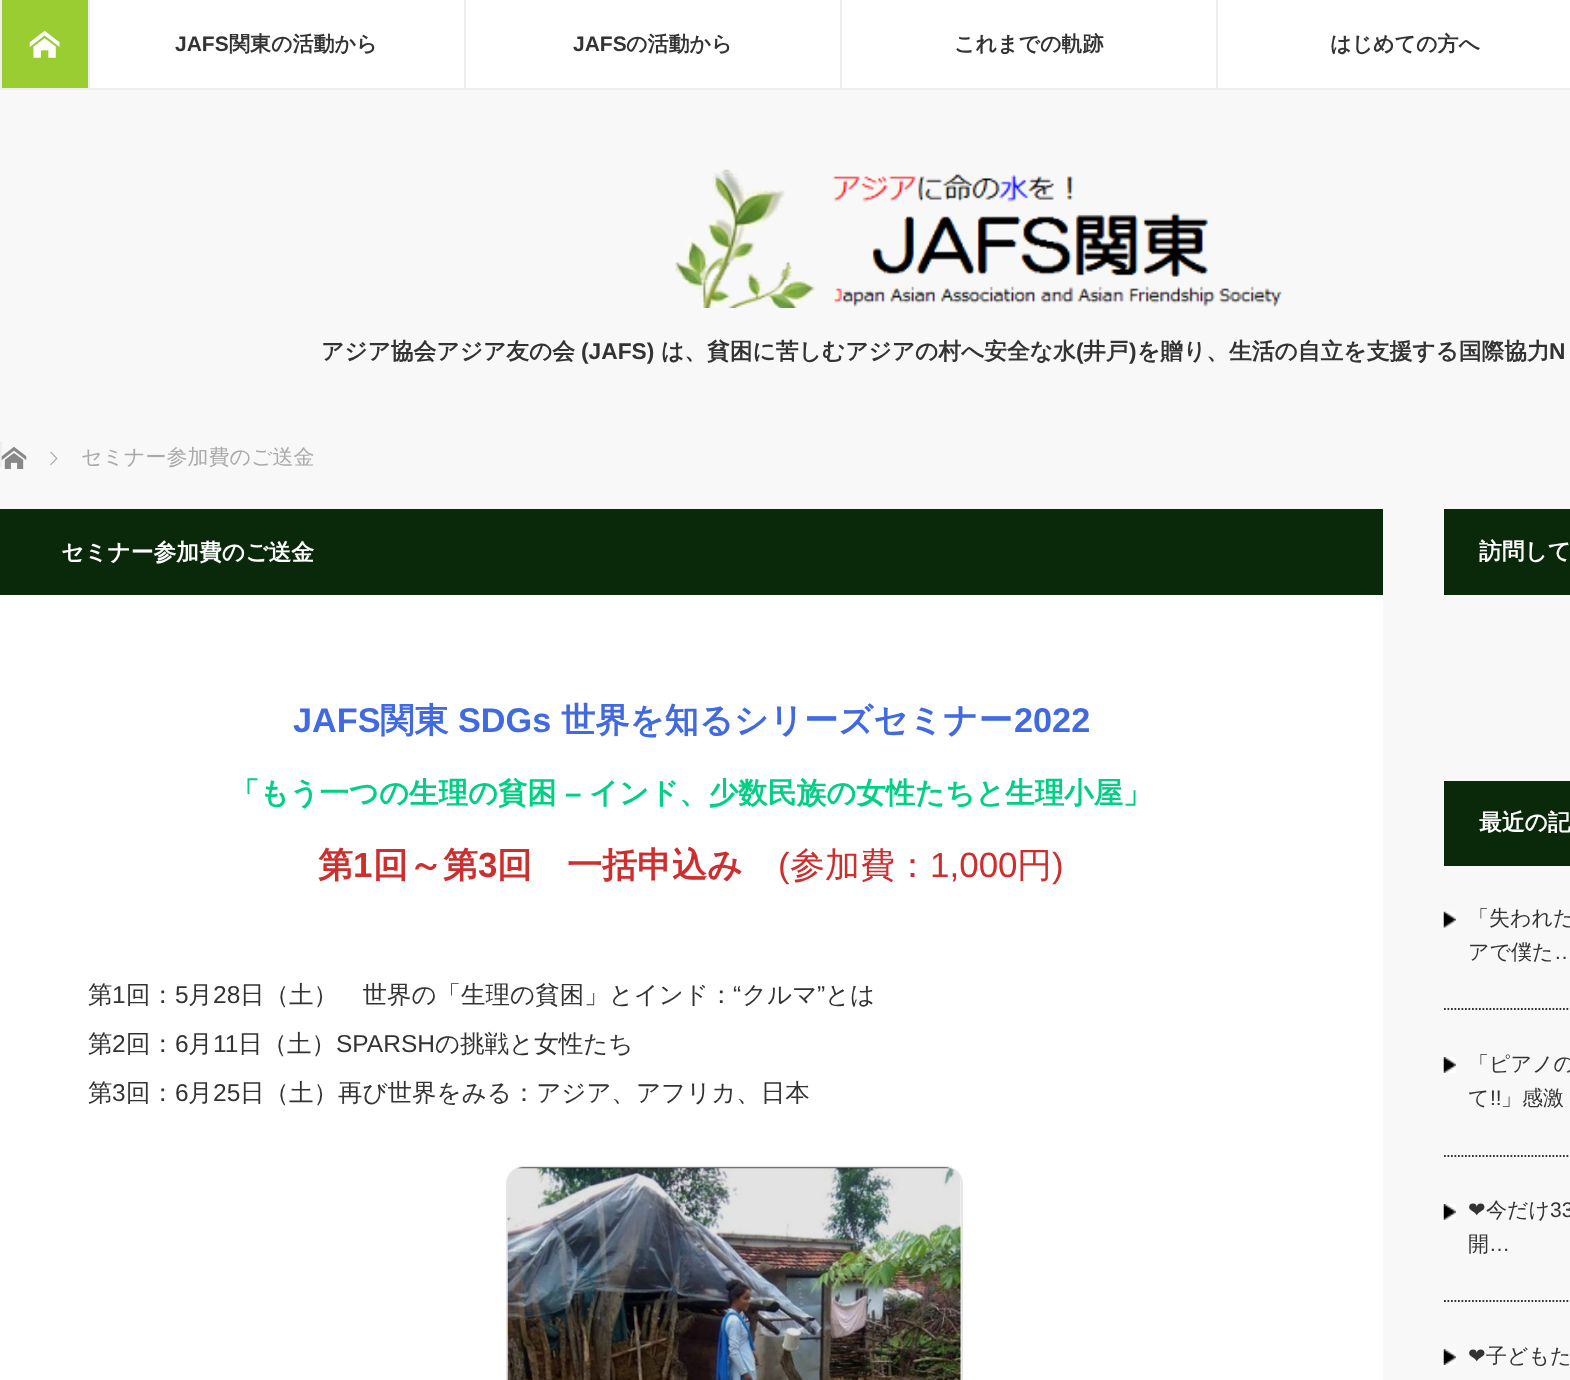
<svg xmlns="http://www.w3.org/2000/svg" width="1570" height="1380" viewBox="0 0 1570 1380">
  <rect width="100%" height="100%" fill="#f8f8f8"/>
  <path d="M90 0h1480v88H90z" fill="#fff"/>
  <path d="M0 88h1570v2H0z" fill="#eee"/>
  <path d="M2 0h86v88H2z" fill="#9acd32"/>
  <path d="M0 0h2v88H0z" fill="#eee"/>
  <image x="29" y="30" width="31" height="28" href="img/1.png"/>
  <path d="M88 0h2v88H88z" fill="#eee"/>
  <path d="M464 0h2v88H464z" fill="#eee"/>
  <path d="M840 0h2v88H840z" fill="#eee"/>
  <path d="M1216 0h2v88H1216z" fill="#eee"/>
  <image x="675" y="169" width="607" height="139" href="img/2.png"/>
  <path d="M0 441h2v26H0z" fill="#eee"/>
  <image x="1" y="447" width="26" height="22" href="img/3.png"/>
  <image x="50" y="451" width="8" height="15" href="img/4.png"/>
  <path d="M0 595h1383v785H0z" fill="#fff"/>
  <path d="M0 509h1383v86H0z" fill="#0a290a"/>
  <rect x="507" y="1167" width="455" height="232" rx="17" fill="none" stroke="#e6e6e6" stroke-width="2"/>
  <image x="507" y="1167" width="454" height="213" href="img/5.png"/>
  <path d="M1444 509h126v86H1444z" fill="#0a290a"/>
  <path d="M1444 781h126v85H1444z" fill="#0a290a"/>
  <path d="M1444 1009H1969" fill="none" stroke="#333" stroke-width="1.8" stroke-dasharray="1.75 1.75"/>
  <image x="1443" y="911" width="13" height="17" href="img/6.png"/>
  <path d="M1444 1156H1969" fill="none" stroke="#333" stroke-width="1.8" stroke-dasharray="1.75 1.75"/>
  <image x="1443" y="1057" width="13" height="16" href="img/7.png"/>
  <path d="M1444 1301H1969" fill="none" stroke="#333" stroke-width="1.8" stroke-dasharray="1.75 1.75"/>
  <image x="1443" y="1204" width="13" height="16" href="img/7.png"/>
  <image x="1443" y="1349" width="13" height="16" href="img/8.png"/>
  <text x="175" y="51" font-family="Liberation Sans" font-size="21" font-weight="bold" fill="#333">JAFS</text>
  <text x="229" y="51" font-family="WenQuanYi Zen Hei" font-size="21" font-weight="bold" fill="#333">関東の活動から</text>
  <text x="573" y="51" font-family="Liberation Sans" font-size="21" font-weight="bold" fill="#333">JAFS</text>
  <g font-family="WenQuanYi Zen Hei" font-size="21" font-weight="bold" fill="#333">
    <text x="626" y="51">の活動から</text>
    <text x="954" y="51">これまでの軌跡</text>
    <text x="1330" y="51">はじめての方へ</text>
  </g>
  <text x="321" y="359" font-family="WenQuanYi Zen Hei" font-size="22.75" font-weight="bold" fill="#333">アジア協会アジア友の会</text>
  <text x="581" y="359" font-family="Liberation Sans" font-size="22.75" font-weight="bold" fill="#333">(JAFS)</text>
  <text x="661" y="359" font-family="WenQuanYi Zen Hei" font-size="22.75" font-weight="bold" fill="#333">は、貧困に苦しむアジアの村へ安全な水</text>
  <text x="1076" y="359" font-family="Liberation Sans" font-size="22.75" font-weight="bold" fill="#333">(</text>
  <text x="1083" y="359" font-family="WenQuanYi Zen Hei" font-size="22.75" font-weight="bold" fill="#333">井戸</text>
  <text x="1129" y="359" font-family="Liberation Sans" font-size="22.75" font-weight="bold" fill="#333">)</text>
  <text x="1137" y="359" font-family="WenQuanYi Zen Hei" font-size="22.75" font-weight="bold" fill="#333">を贈り、生活の自立を支援する国際協力</text>
  <text x="1549" y="359" font-family="Liberation Sans" font-size="22.75" font-weight="bold" fill="#333">N</text>
  <text x="81" y="464" font-family="WenQuanYi Zen Hei" font-size="21" font-weight="500" fill="#aaa">セミナー参加費のご送金</text>
  <text x="61" y="560" font-family="WenQuanYi Zen Hei" font-size="22.75" font-weight="bold" fill="#fff">セミナー参加費のご送金</text>
  <text x="293" y="732" font-family="Liberation Sans" font-size="34.25" font-weight="bold" fill="#4169e1">JAFS</text>
  <text x="380" y="732" font-family="WenQuanYi Zen Hei" font-size="34.25" font-weight="bold" fill="#4169e1">関東</text>
  <text x="458" y="732" font-family="Liberation Sans" font-size="34.25" font-weight="bold" fill="#4169e1">SDGs</text>
  <text x="561" y="732" font-family="WenQuanYi Zen Hei" font-size="34.25" font-weight="bold" fill="#4169e1">世界を知るシリーズセミナー</text>
  <text x="1014" y="732" font-family="Liberation Sans" font-size="34.25" font-weight="bold" fill="#4169e1">2022</text>
  <text x="230" y="803" font-family="WenQuanYi Zen Hei" font-size="29.4" font-weight="bold" fill="#00d084">「もう一つの生理の貧困</text>
  <text x="565" y="803" font-family="Liberation Sans" font-size="29.4" font-weight="bold" fill="#00d084">–</text>
  <text x="589" y="803" font-family="WenQuanYi Zen Hei" font-size="29.4" font-weight="bold" fill="#00d084">インド、少数民族の女性たちと生理小屋」</text>
  <text x="318" y="877" font-family="WenQuanYi Zen Hei" font-size="35" font-weight="bold" fill="#cf2e2e">第</text>
  <text x="353" y="877" font-family="Liberation Sans" font-size="35" font-weight="bold" fill="#cf2e2e">1</text>
  <text x="373" y="877" font-family="WenQuanYi Zen Hei" font-size="35" font-weight="bold" fill="#cf2e2e">回～第</text>
  <text x="478" y="877" font-family="Liberation Sans" font-size="35" font-weight="bold" fill="#cf2e2e">3</text>
  <text x="497" y="877" font-family="WenQuanYi Zen Hei" font-size="35" font-weight="bold" fill="#cf2e2e">回　一括申込み</text>
  <text x="778" y="877" font-family="Liberation Sans" font-size="35" fill="#cf2e2e">(</text>
  <text x="790" y="877" font-family="WenQuanYi Zen Hei" font-size="35" font-weight="500" fill="#cf2e2e">参加費：</text>
  <text x="930" y="877" font-family="Liberation Sans" font-size="35" fill="#cf2e2e">1,000</text>
  <text x="1017" y="877" font-family="WenQuanYi Zen Hei" font-size="35" font-weight="500" fill="#cf2e2e">円</text>
  <text x="1052" y="877" font-family="Liberation Sans" font-size="35" fill="#cf2e2e">)</text>
  <text x="88" y="1003" font-family="WenQuanYi Zen Hei" font-size="24.5" font-weight="500" fill="#333">第</text>
  <text x="112" y="1003" font-family="Liberation Sans" font-size="24.5" fill="#333">1</text>
  <text x="126" y="1003" font-family="WenQuanYi Zen Hei" font-size="24.5" font-weight="500" fill="#333">回：</text>
  <text x="175" y="1003" font-family="Liberation Sans" font-size="24.5" fill="#333">5</text>
  <text x="188" y="1003" font-family="WenQuanYi Zen Hei" font-size="24.5" font-weight="500" fill="#333">月</text>
  <text x="213" y="1003" font-family="Liberation Sans" font-size="24.5" fill="#333">28</text>
  <text x="240" y="1003" font-family="WenQuanYi Zen Hei" font-size="24.5" font-weight="500" fill="#333">日（土）　世界の「生理の貧困」とインド：</text>
  <text x="733" y="1003" font-family="Liberation Sans" font-size="24.5" fill="#333">“</text>
  <text x="742" y="1003" font-family="WenQuanYi Zen Hei" font-size="24.5" font-weight="500" fill="#333">クルマ</text>
  <text x="817" y="1003" font-family="Liberation Sans" font-size="24.5" fill="#333">”</text>
  <g font-family="WenQuanYi Zen Hei" font-size="24.5" font-weight="500" fill="#333">
    <text x="825" y="1003">とは</text>
    <text x="88" y="1052">第</text>
  </g>
  <text x="112" y="1052" font-family="Liberation Sans" font-size="24.5" fill="#333">2</text>
  <text x="126" y="1052" font-family="WenQuanYi Zen Hei" font-size="24.5" font-weight="500" fill="#333">回：</text>
  <text x="175" y="1052" font-family="Liberation Sans" font-size="24.5" fill="#333">6</text>
  <text x="188" y="1052" font-family="WenQuanYi Zen Hei" font-size="24.5" font-weight="500" fill="#333">月</text>
  <text x="213" y="1052" font-family="Liberation Sans" font-size="24.5" fill="#333">11</text>
  <text x="238" y="1052" font-family="WenQuanYi Zen Hei" font-size="24.5" font-weight="500" fill="#333">日（土）</text>
  <text x="336" y="1052" font-family="Liberation Sans" font-size="24.5" fill="#333">SPARSH</text>
  <g font-family="WenQuanYi Zen Hei" font-size="24.5" font-weight="500" fill="#333">
    <text x="435" y="1052">の挑戦と女性たち</text>
    <text x="88" y="1101">第</text>
  </g>
  <text x="112" y="1101" font-family="Liberation Sans" font-size="24.5" fill="#333">3</text>
  <text x="126" y="1101" font-family="WenQuanYi Zen Hei" font-size="24.5" font-weight="500" fill="#333">回：</text>
  <text x="175" y="1101" font-family="Liberation Sans" font-size="24.5" fill="#333">6</text>
  <text x="188" y="1101" font-family="WenQuanYi Zen Hei" font-size="24.5" font-weight="500" fill="#333">月</text>
  <text x="213" y="1101" font-family="Liberation Sans" font-size="24.5" fill="#333">25</text>
  <text x="240" y="1101" font-family="WenQuanYi Zen Hei" font-size="24.5" font-weight="500" fill="#333">日（土）再び世界をみる：アジア、アフリカ、日本</text>
  <g font-family="WenQuanYi Zen Hei" font-size="22.75" font-weight="bold" fill="#fff">
    <text x="1479" y="559">訪問して</text>
    <text x="1479" y="830">最近の記</text>
  </g>
  <g font-family="WenQuanYi Zen Hei" font-size="21" font-weight="500" fill="#333">
    <text x="1468" y="925">「失われた</text>
    <text x="1468" y="959">アで僕た</text>
  </g>
  <text x="1554" y="959" font-family="Liberation Sans" font-size="21" fill="#333">…</text>
  <g font-family="WenQuanYi Zen Hei" font-size="21" font-weight="500" fill="#333">
    <text x="1468" y="1071">「ピアノの</text>
    <text x="1468" y="1105">て</text>
  </g>
  <text x="1490" y="1105" font-family="Liberation Sans" font-size="21" fill="#333">!!</text>
  <text x="1501" y="1105" font-family="WenQuanYi Zen Hei" font-size="21" font-weight="500" fill="#333">」感激</text>
  <text x="1468" y="1217" font-family="DejaVu Sans" font-size="21" fill="#333">❤</text>
  <text x="1486" y="1217" font-family="WenQuanYi Zen Hei" font-size="21" font-weight="500" fill="#333">今だけ</text>
  <text x="1550" y="1217" font-family="Liberation Sans" font-size="21" fill="#333">33</text>
  <text x="1468" y="1251" font-family="WenQuanYi Zen Hei" font-size="21" font-weight="500" fill="#333">開</text>
  <text x="1489" y="1251" font-family="Liberation Sans" font-size="21" fill="#333">…</text>
  <text x="1468" y="1363" font-family="DejaVu Sans" font-size="21" fill="#333">❤</text>
  <text x="1486" y="1363" font-family="WenQuanYi Zen Hei" font-size="21" font-weight="500" fill="#333">子どもた</text>
</svg>
